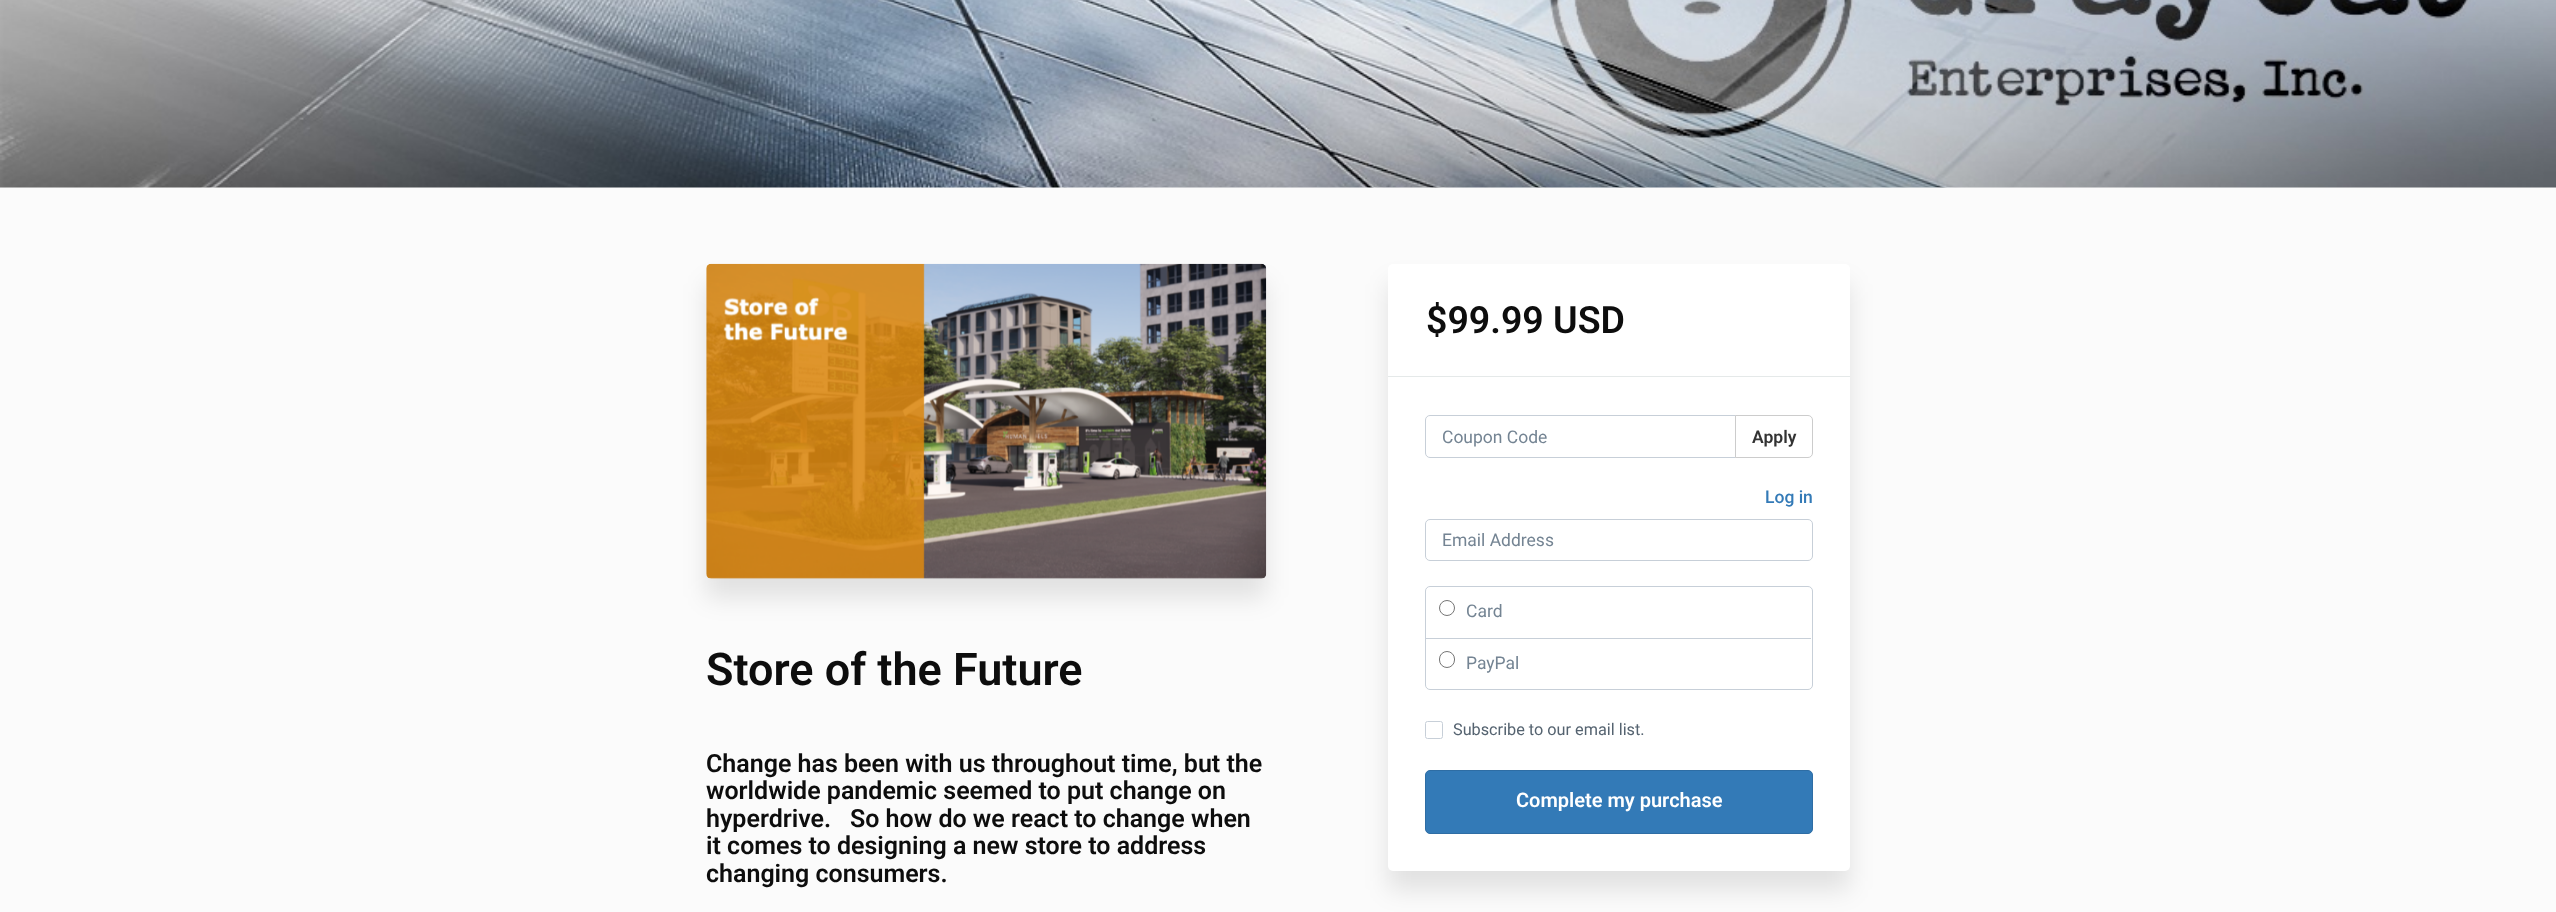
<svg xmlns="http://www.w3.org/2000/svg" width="2556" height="912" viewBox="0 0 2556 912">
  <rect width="100%" height="100%" fill="#fbfbfb"/>
  <image x="0" y="0" width="2556" height="188" href="img/1.png"/>
  <rect x="706" y="283" width="560" height="315" rx="5" fill="#0000001a" filter="blur(12.5px)"/>
  <image x="706" y="263" width="561" height="316" href="img/2.png"/>
  <rect x="1388" y="283" width="462" height="607" rx="5" fill="#0000001a" filter="blur(12.5px)"/>
  <rect x="1388" y="264" width="462" height="607" rx="5" fill="#fff"/>
  <path d="M1388 376h462v1H1388z" fill="#e5e9e9"/>
  <path d="M1430 415.5H1735.5V457.5H1430C1427.5 457.5 1425.5 455.5 1425.5 453V420C1425.5 417.5 1427.5 415.5 1430 415.5Z" fill="none" stroke="#c7cfd8"/>
  <path d="M1735.5 415.5H1808C1810.5 415.5 1812.5 417.5 1812.5 420V453C1812.5 455.5 1810.5 457.5 1808 457.5H1735.5Z" fill="#fff" stroke="#ccc"/>
  <rect x="1425.5" y="519.5" width="387" height="41" rx="4.5" fill="none" stroke="#c7cfd8"/>
  <rect x="1425.5" y="586.5" width="387" height="103" rx="4.5" fill="none" stroke="#c7cfd8"/>
  <path d="M1426 638h385v1H1426z" fill="#c7cfd8"/>
  <circle cx="1447" cy="608" r="7.5" fill="none" stroke="#767676"/>
  <rect x="1439.5" y="651.5" width="15" height="16" rx="7.5" fill="none" stroke="#767676"/>
  <rect x="1425.5" y="721.5" width="17" height="17" rx="2" fill="none" stroke="#c7cfd8"/>
  <rect x="1425.5" y="770.5" width="387" height="63" rx="4.5" fill="#337ab7" stroke="#2e6da4"/>
  <text x="706" y="685" font-family="Roboto" font-size="45" font-weight="600" fill="#0d0d0d">Store of the Future</text>
  <g font-family="Roboto" font-size="25" font-weight="600" fill="#0d0d0d">
    <text x="706" y="772">Change has been with us throughout time, but the</text>
    <text x="706" y="799">worldwide pandemic seemed to put change on</text>
    <text x="706" y="827">hyperdrive.</text>
    <text x="850" y="827">So how do we react to change when</text>
    <text x="706" y="854">it comes to designing a new store to address</text>
    <text x="706" y="882">changing consumers.</text>
  </g>
  <text x="1426" y="333" font-family="Roboto" font-size="37.5" font-weight="600" fill="#0d0d0d">$99.99 USD</text>
  <text x="1442" y="443" font-family="Roboto" font-size="17.5" fill="#748493">Coupon Code</text>
  <text x="1752" y="443" font-family="Roboto" font-size="17.5" font-weight="600" fill="#333">Apply</text>
  <text x="1765" y="503" font-family="Roboto" font-size="17.5" font-weight="500" fill="#337ab7">Log in</text>
  <g font-family="Roboto" font-size="17.5" fill="#748493">
    <text x="1442" y="546">Email Address</text>
    <text x="1466" y="617">Card</text>
    <text x="1466" y="669">PayPal</text>
  </g>
  <text x="1453" y="735" font-family="Roboto" font-size="16.25" fill="#556370">Subscribe to our email list.</text>
  <text x="1516" y="807" font-family="Roboto" font-size="20" font-weight="600" fill="#fff">Complete my purchase</text>
</svg>
